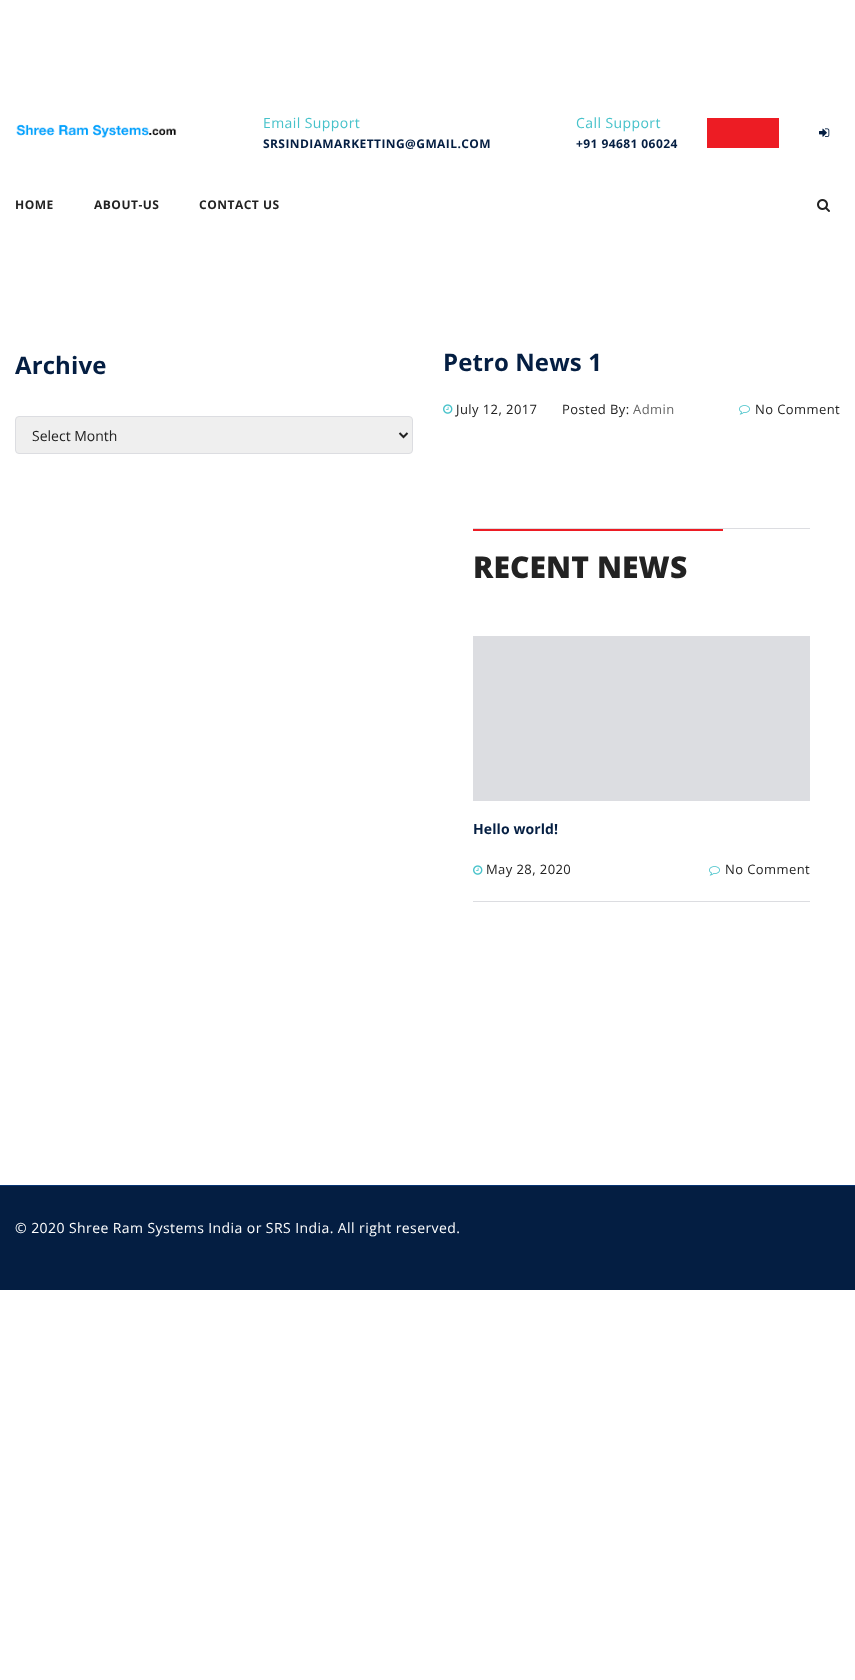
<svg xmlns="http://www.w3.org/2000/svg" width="855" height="1680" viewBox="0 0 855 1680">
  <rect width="100%" height="100%" fill="#fff"/>
  <image x="16" y="124" width="161" height="14" href="img/1.png"/>
  <path d="M707 118h72v30H707z" fill="#ed1c24"/>
  <image x="819" y="128" width="11" height="9" href="img/2.png"/>
  <image x="817" y="199" width="13" height="13" href="img/3.png"/>
  <rect x="15.5" y="416.5" width="397" height="37" rx="3.5" fill="#efefef" stroke="#dcdde1"/>
  <path d="M399.5 433L403.5 437L407.5 433" fill="none" stroke="#222" stroke-width="2"/>
  <image x="443" y="404" width="10" height="10" href="img/4.png"/>
  <image x="739" y="405" width="11" height="10" href="img/5.png"/>
  <path d="M473 528h337v1H473z" fill="#dcdde1"/>
  <path d="M473 529h250v2H473z" fill="#ed1c24"/>
  <path d="M473 901h337v1H473z" fill="#dcdde1"/>
  <path d="M473 636h337v165H473z" fill="#dcdde1"/>
  <image x="473" y="865" width="10" height="10" href="img/4.png"/>
  <image x="709" y="866" width="11" height="10" href="img/5.png"/>
  <path d="M0 1186h855v104H0z" fill="#041e42"/>
  <path d="M0 1185h855v1H0z" fill="#073472"/>
  <text x="263" y="128" font-family="Open Sans" font-size="14" letter-spacing="0.42" fill="#46c2ca">Email Support</text>
  <text x="263" y="148" font-family="Open Sans" font-size="12" font-weight="bold" letter-spacing="0.42" fill="#041e42">SRSINDIAMARKETTING@GMAIL.COM</text>
  <text x="576" y="128" font-family="Open Sans" font-size="14" letter-spacing="0.42" fill="#46c2ca">Call Support</text>
  <text x="576" y="148" font-family="Open Sans" font-size="12" font-weight="bold" letter-spacing="0.42" fill="#041e42">+91 94681 06024</text>
  <g font-family="Open Sans" font-size="12" font-weight="bold" letter-spacing="0.5" fill="#222">
    <text x="15" y="209">HOME</text>
    <text x="94" y="209">ABOUT-US</text>
    <text x="199" y="209">CONTACT US</text>
  </g>
  <text x="15" y="374" font-family="Open Sans" font-size="24" font-weight="bold" letter-spacing="0.1" fill="#041e42">Archive</text>
  <text x="32" y="441" font-family="Open Sans" font-size="14" fill="#222">Select Month</text>
  <text x="443" y="371" font-family="Open Sans" font-size="24" font-weight="bold" letter-spacing="0.1" fill="#041e42">Petro News 1</text>
  <g font-family="Open Sans" font-size="13" letter-spacing="0.42" fill="#222">
    <text x="456" y="414">July 12, 2017</text>
    <text x="562" y="414">Posted By:</text>
  </g>
  <text x="633" y="414" font-family="Open Sans" font-size="13" letter-spacing="0.42" fill="#666">Admin</text>
  <text x="755" y="414" font-family="Open Sans" font-size="13" letter-spacing="0.42" fill="#222">No Comment</text>
  <text x="473" y="578" font-family="Open Sans" font-size="30" font-weight="800" letter-spacing="0.1" fill="#222">RECENT NEWS</text>
  <text x="473" y="834" font-family="Open Sans" font-size="14" font-weight="bold" letter-spacing="0.1" fill="#041e42">Hello world!</text>
  <g font-family="Open Sans" font-size="13" letter-spacing="0.42" fill="#222">
    <text x="486" y="874">May 28, 2020</text>
    <text x="725" y="874">No Comment</text>
  </g>
  <text x="15" y="1233" font-family="Open Sans" font-size="14" letter-spacing="0.42" fill="#fff">© 2020 Shree Ram Systems India or SRS India. All right reserved.</text>
</svg>
